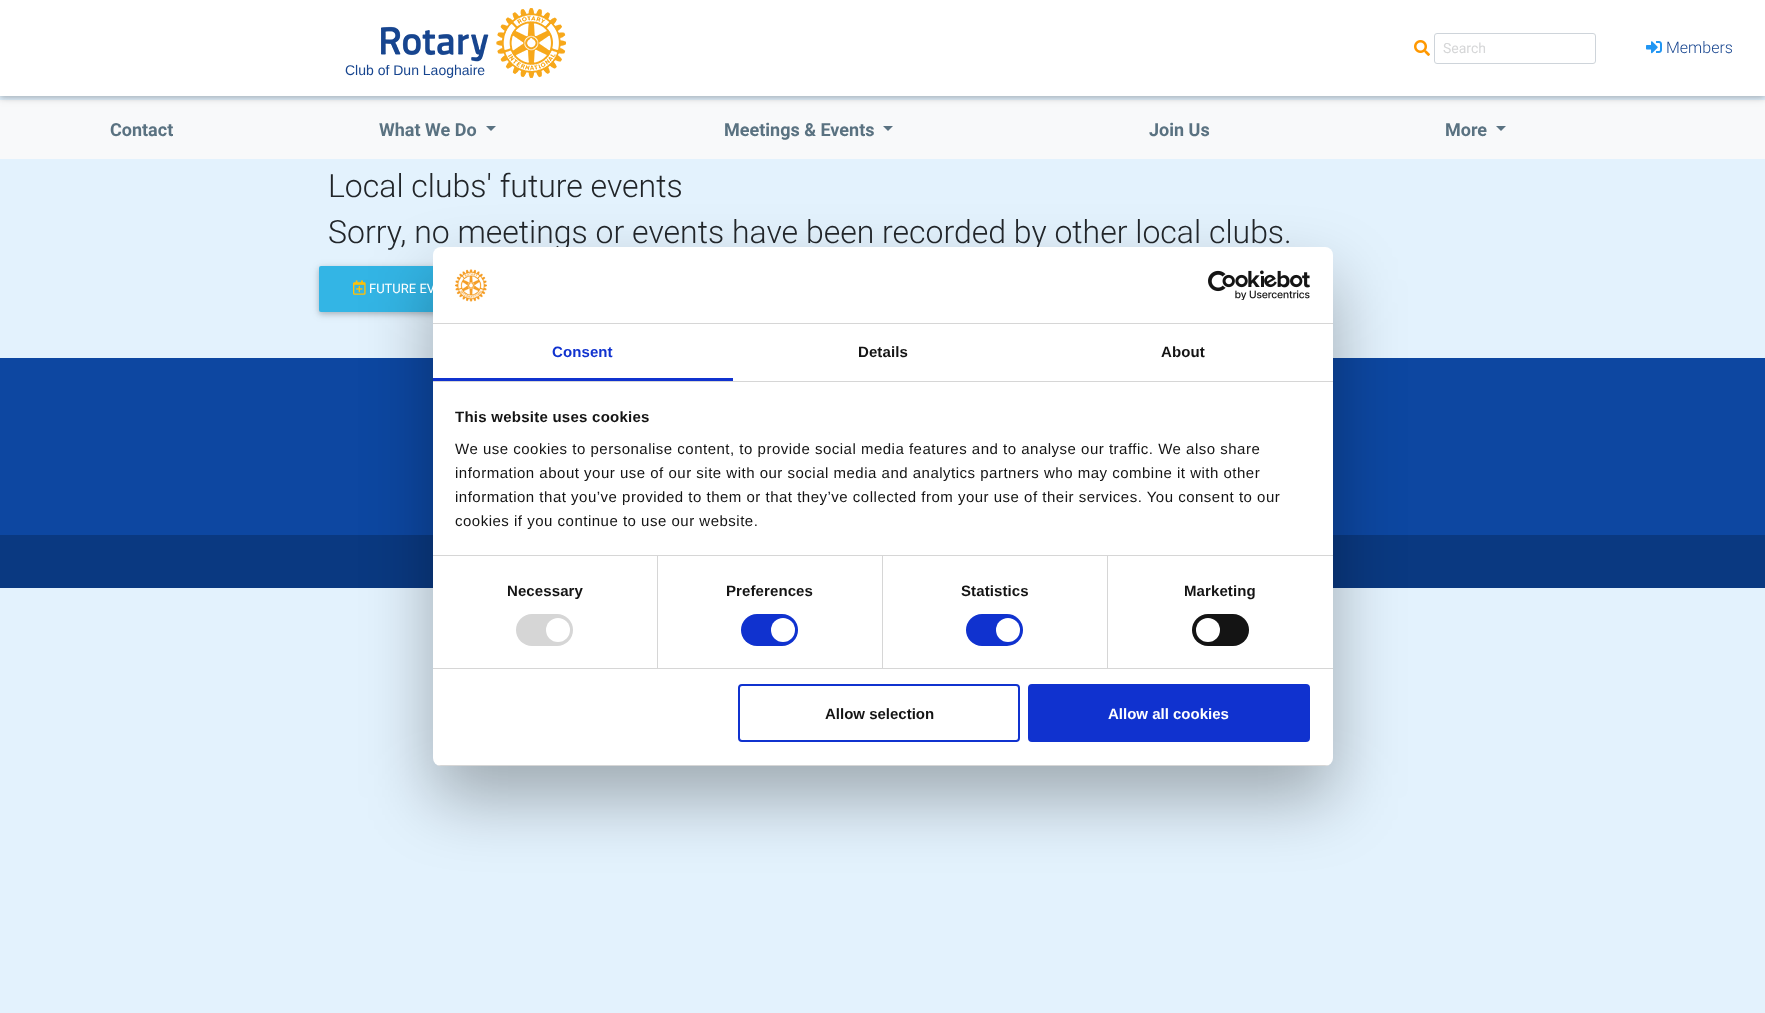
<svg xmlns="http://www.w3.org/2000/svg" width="1765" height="1013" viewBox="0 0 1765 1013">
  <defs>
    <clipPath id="clip1"><rect x="433" y="247" width="900" height="519" rx="8"/></clipPath>
  </defs>
  <rect width="100%" height="100%" fill="#e3f2fd"/>
  <path d="M0 100h1765v59H0z" fill="#f8f9fa"/>
  <path d="M0 2h1765v96H0z" fill="#0000001f" filter="blur(5px)"/>
  <path d="M0 2h1765v96H0z" fill="#00000029" filter="blur(2.5px)"/>
  <path d="M0 0h1765v96H0z" fill="#fff"/>
  <image x="1414" y="40" width="16" height="16" href="img/1.png"/>
  <rect x="1434.5" y="33.5" width="161" height="30" rx="2.5" fill="none" stroke="#ced4da"/>
  <image x="1646" y="41" width="16" height="13" href="img/2.png"/>
  <image x="381" y="8" width="185" height="70" href="img/3.png"/>
  <path d="M486 126H496L491 131Z" fill="#5a7281"/>
  <path d="M883 126H893L888 131Z" fill="#5a7281"/>
  <path d="M1496 126H1506L1501 131Z" fill="#5a7281"/>
  <rect x="319" y="268" width="182" height="46" rx="2" fill="#0000001f" filter="blur(5px)"/>
  <rect x="319" y="268" width="182" height="46" rx="2" fill="#00000029" filter="blur(2.5px)"/>
  <rect x="319" y="266" width="182" height="46" rx="2" fill="#33b5e5"/>
  <image x="353" y="280" width="13" height="15" href="img/4.png"/>
  <path d="M0 358h1765v177H0z" fill="#0d47a1"/>
  <path d="M0 535h1765v53H0z" fill="#0a3981"/>
  <rect x="433" y="279" width="900" height="519" rx="8" fill="#0000004d" filter="blur(34px)"/>
  <text x="1443" y="53" font-family="Roboto" font-size="14" fill="#d6d7d8">Search</text>
  <text x="1666" y="53" font-family="Roboto" font-size="16" font-weight="300" fill="#17458f">Members</text>
  <text x="345" y="75" font-family="Liberation Sans" font-size="14" fill="#17458f">Club of Dun Laoghaire</text>
  <g font-family="Roboto" font-size="18" font-weight="bold" fill="#5a7281">
    <text x="110" y="136">Contact</text>
    <text x="379" y="136">What We Do</text>
    <text x="724" y="136">Meetings &amp; Events</text>
    <text x="1149" y="136">Join Us</text>
    <text x="1445" y="136">More</text>
  </g>
  <g font-family="Roboto" font-size="32" font-weight="300" fill="#212529">
    <text x="328" y="197">Local clubs' future events</text>
    <text x="328" y="243">Sorry, no meetings or events have been recorded by other local clubs.</text>
  </g>
  <text x="369" y="293" font-family="Roboto" font-size="13" fill="#fff">FUTURE EV</text>
  <rect x="433" y="247" width="900" height="519" rx="8" fill="#fff"/>
  <path d="M433 323h900v1H433z" fill="#d6d6d6"/>
  <image x="455" y="269" width="32" height="33" href="img/5.png"/>
  <image x="1208" y="270" width="102" height="30" href="img/6.png"/>
  <path d="M433 381h900v1H433z" fill="#d6d6d6"/>
  <path d="M433 378h300v3H433z" fill="#1032cf"/>
  <text x="552" y="357" font-family="Liberation Sans" font-size="15" font-weight="bold" letter-spacing="0.1" fill="#1032cf">Consent</text>
  <g font-family="Liberation Sans" font-size="15" font-weight="bold" letter-spacing="0.1" fill="#141414">
    <text x="858" y="357">Details</text>
    <text x="1161" y="357">About</text>
  </g>
  <path d="M433 555h900v1H433z" fill="#d6d6d6"/>
  <text x="455" y="422" font-family="Liberation Sans" font-size="15" font-weight="bold" letter-spacing="0.25" fill="#141414">This website uses cookies</text>
  <g font-family="Liberation Sans" font-size="15" letter-spacing="0.5" fill="#141414">
    <text x="455" y="454">We use cookies to personalise content, to provide social media features and to analyse our traffic. We also share</text>
    <text x="455" y="478">information about your use of our site with our social media and analytics partners who may combine it with other</text>
    <text x="455" y="502">information that you’ve provided to them or that they’ve collected from your use of their services. You consent to our</text>
    <text x="455" y="526">cookies if you continue to use our website.</text>
  </g>
  <path d="M433 668h900v1H433z" fill="#d6d6d6"/>
  <path d="M657 556h1v112H657z" fill="#d6d6d6"/>
  <text x="507" y="596" font-family="Liberation Sans" font-size="15" font-weight="bold" letter-spacing="0.1" fill="#141414">Necessary</text>
  <rect x="516" y="614" width="57" height="32" rx="16" fill="#d6d6d6"/>
  <circle cx="558" cy="630" r="12" fill="#fff"/>
  <path d="M882 556h1v112H882z" fill="#d6d6d6"/>
  <text x="726" y="596" font-family="Liberation Sans" font-size="15" font-weight="bold" letter-spacing="0.1" fill="#141414">Preferences</text>
  <rect x="741" y="614" width="57" height="32" rx="16" fill="#1032cf"/>
  <circle cx="783" cy="630" r="12" fill="#fff"/>
  <path d="M1107 556h1v112H1107z" fill="#d6d6d6"/>
  <text x="961" y="596" font-family="Liberation Sans" font-size="15" font-weight="bold" letter-spacing="0.1" fill="#141414">Statistics</text>
  <rect x="966" y="614" width="57" height="32" rx="16" fill="#1032cf"/>
  <circle cx="1008" cy="630" r="12" fill="#fff"/>
  <text x="1184" y="596" font-family="Liberation Sans" font-size="15" font-weight="bold" letter-spacing="0.1" fill="#141414">Marketing</text>
  <rect x="1192" y="614" width="57" height="32" rx="16" fill="#141414"/>
  <circle cx="1208" cy="630" r="12" fill="#fff"/>
  <g clip-path="url(#clip1)">
    <path d="M433 765h900v1H433z" fill="#d6d6d6"/>
  </g>
  <rect x="739" y="685" width="280" height="56" rx="3" fill="none" stroke="#1032cf" stroke-width="2"/>
  <text x="825" y="719" font-family="Liberation Sans" font-size="15" font-weight="bold" fill="#141414">Allow selection</text>
  <rect x="1029" y="685" width="280" height="56" rx="3" fill="#1032cf" stroke="#1032cf" stroke-width="2"/>
  <text x="1108" y="719" font-family="Liberation Sans" font-size="15" font-weight="bold" fill="#fff">Allow all cookies</text>
</svg>
